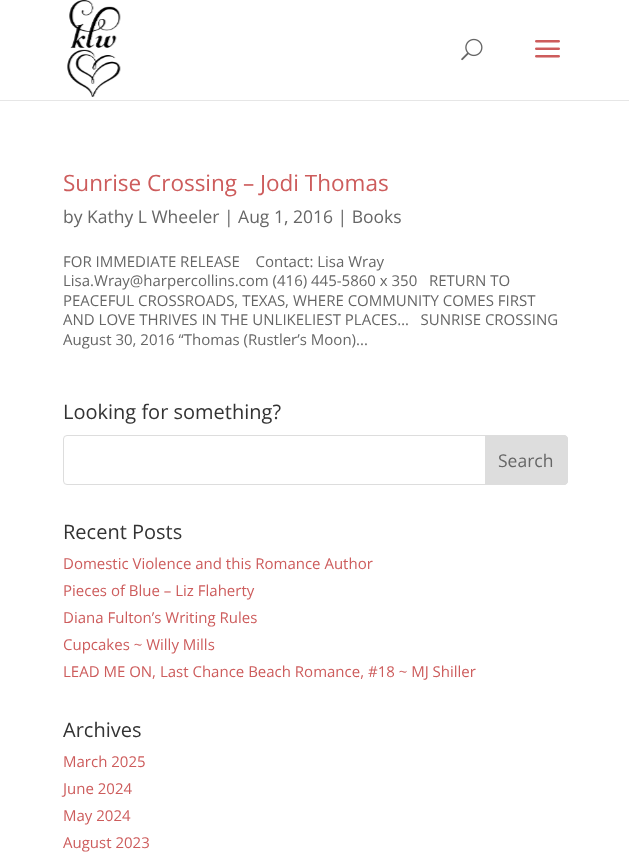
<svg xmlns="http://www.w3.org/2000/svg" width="629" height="863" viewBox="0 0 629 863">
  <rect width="100%" height="100%" fill="#fff"/>
  <path d="M0 100h629v1H0z" fill="#e6e6e6"/>
  <image x="67" y="0" width="54" height="97" href="img/1.png"/>
  <image x="461" y="38" width="22" height="23" href="img/2.png"/>
  <image x="535" y="40" width="25" height="18" href="img/3.png"/>
  <rect x="63.5" y="435.5" width="504" height="49" rx="3.5" fill="none" stroke="#ddd"/>
  <path d="M485.5 435.5H564C566 435.5 567.5 437 567.5 439V481C567.5 483 566 484.5 564 484.5H485.5Z" fill="#ddd" stroke="#ddd"/>
  <text x="63" y="191" font-family="Open Sans" font-size="22.5" fill="#cd5c5c">Sunrise Crossing – Jodi Thomas</text>
  <text x="63" y="223" font-family="Open Sans" font-size="17.5" fill="#666">by Kathy L Wheeler | Aug 1, 2016 | Books</text>
  <g font-family="Open Sans" font-size="15" fill="#666">
    <text x="63" y="267" xml:space="preserve">FOR IMMEDIATE RELEASE    Contact: Lisa Wray</text>
    <text x="63" y="286" xml:space="preserve">Lisa.Wray@harpercollins.com (416) 445-5860 x 350   RETURN TO</text>
    <text x="63" y="306">PEACEFUL CROSSROADS, TEXAS, WHERE COMMUNITY COMES FIRST</text>
    <text x="63" y="325" xml:space="preserve">AND LOVE THRIVES IN THE UNLIKELIEST PLACES…   SUNRISE CROSSING</text>
    <text x="63" y="345">August 30, 2016 “Thomas (Rustler’s Moon)...</text>
  </g>
  <text x="63" y="419" font-family="Open Sans" font-size="20" fill="#333">Looking for something?</text>
  <text x="498" y="467" font-family="Open Sans" font-size="17.5" fill="#666">Search</text>
  <text x="63" y="539" font-family="Open Sans" font-size="20" fill="#333">Recent Posts</text>
  <g font-family="Open Sans" font-size="15" fill="#cd5c5c">
    <text x="63" y="569">Domestic Violence and this Romance Author</text>
    <text x="63" y="596">Pieces of Blue – Liz Flaherty</text>
    <text x="63" y="623">Diana Fulton’s Writing Rules</text>
    <text x="63" y="650">Cupcakes ~ Willy Mills</text>
    <text x="63" y="677">LEAD ME ON, Last Chance Beach Romance, #18 ~ MJ Shiller</text>
  </g>
  <text x="63" y="737" font-family="Open Sans" font-size="20" fill="#333">Archives</text>
  <g font-family="Open Sans" font-size="15" fill="#cd5c5c">
    <text x="63" y="767">March 2025</text>
    <text x="63" y="794">June 2024</text>
    <text x="63" y="821">May 2024</text>
    <text x="63" y="848">August 2023</text>
  </g>
</svg>
